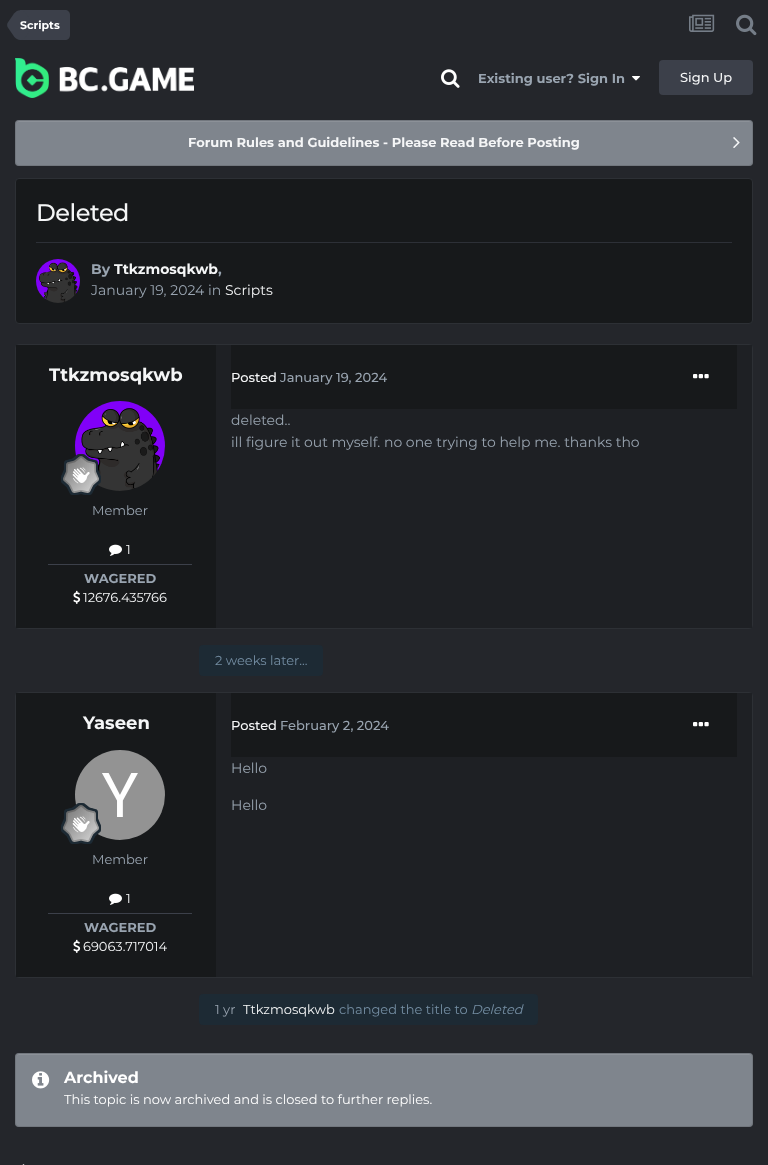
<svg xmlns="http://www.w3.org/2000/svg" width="768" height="1165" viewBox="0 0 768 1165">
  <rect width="100%" height="100%" fill="#24262b"/>
  <path d="M20 10H65C68 10 70 12 70 15V35C70 38 68 40 65 40H20Z" fill="#3c404a"/>
  <path d="M26 13.5L28 16.5C31 21 31 29 28 33.5L26 36.5C22.5 41 17.5 41 14 36.5L7.5 27C7 26 7 24 7.5 23L14 13.5C17.5 9 22.5 9 26 13.5Z" fill="#3c404a"/>
  <image x="689" y="14" width="26" height="18" href="img/1.png"/>
  <image x="736" y="14" width="21" height="22" href="img/2.png"/>
  <image x="15" y="58" width="179" height="40" href="img/3.png"/>
  <image x="441" y="69" width="19" height="19" href="img/4.png"/>
  <image x="632" y="76" width="8" height="5" href="img/5.png"/>
  <rect x="659" y="60" width="94" height="35" rx="4" fill="#3c404a"/>
  <rect x="15" y="120" width="738" height="46" rx="4" fill="#7f858d"/>
  <path d="M19 122H749C751 122 752 123 752 125C752 123 751 121 749 121H19C17 121 16 123 16 125C16 123 17 122 19 122Z" fill="#8c9198"/>
  <rect x="15.5" y="120.5" width="737" height="45" rx="3.5" fill="none" stroke="#0000001a"/>
  <image x="733" y="137" width="7" height="11" href="img/6.png"/>
  <rect x="15.5" y="178.5" width="737" height="145" rx="3.5" fill="#17191b" stroke="#2d3035"/>
  <path d="M36 242h696v1H36z" fill="#2d3037"/>
  <image x="36" y="259" width="44" height="44" href="img/7.png"/>
  <rect x="15.5" y="344.5" width="737" height="284" rx="3.5" fill="none" stroke="#2d3035"/>
  <path d="M16 345h200v283H16z" fill="#17191b"/>
  <image x="75" y="401" width="90" height="90" href="img/8.png"/>
  <image x="61" y="454" width="40" height="41" href="img/9.png"/>
  <image x="109" y="544" width="13" height="12" href="img/10.png"/>
  <path d="M48 564h144v1H48z" fill="#3c404a"/>
  <image x="73" y="590" width="8" height="14" href="img/11.png"/>
  <path d="M216 345h536v283H216z" fill="#1e2024"/>
  <path d="M231 345h506v64H231z" fill="#17191b"/>
  <image x="693" y="374" width="16" height="5" href="img/12.png"/>
  <rect x="199" y="645" width="124" height="31" rx="4" fill="#1d2a34"/>
  <rect x="15.5" y="692.5" width="737" height="285" rx="3.5" fill="none" stroke="#2d3035"/>
  <path d="M16 693h200v284H16z" fill="#17191b"/>
  <image x="75" y="750" width="90" height="90" href="img/13.png"/>
  <image x="61" y="803" width="40" height="41" href="img/14.png"/>
  <image x="109" y="893" width="13" height="12" href="img/10.png"/>
  <path d="M48 913h144v1H48z" fill="#3c404a"/>
  <image x="73" y="939" width="8" height="14" href="img/11.png"/>
  <path d="M216 693h536v284H216z" fill="#1e2024"/>
  <path d="M231 693h506v64H231z" fill="#17191b"/>
  <image x="693" y="722" width="16" height="5" href="img/12.png"/>
  <rect x="199" y="994" width="339" height="31" rx="4" fill="#1d2a34"/>
  <rect x="15" y="1053" width="738" height="74" rx="4" fill="#7f858d"/>
  <path d="M19 1055H749C751 1055 752 1056 752 1058C752 1056 751 1054 749 1054H19C17 1054 16 1056 16 1058C16 1056 17 1055 19 1055Z" fill="#8c9198"/>
  <rect x="15.5" y="1053.5" width="737" height="73" rx="3.5" fill="none" stroke="#0000001a"/>
  <image x="32" y="1071" width="18" height="18" href="img/15.png"/>
  <image x="22" y="1164" width="3" height="1" href="img/16.png"/>
  <text x="20" y="29" font-family="Montserrat" font-size="11" font-weight="bold" fill="#fff">Scripts</text>
  <text x="478" y="83" font-family="Montserrat" font-size="13" font-weight="bold" fill="#99a4b0">Existing user? Sign In</text>
  <text x="680" y="82" font-family="Montserrat" font-size="13" font-weight="500" fill="#f5f6f7">Sign Up</text>
  <text x="188" y="147" font-family="Montserrat" font-size="13" font-weight="bold" fill="#f5f6f7">Forum Rules and Guidelines - Please Read Before Posting</text>
  <text x="36" y="221" font-family="Montserrat" font-size="24" font-weight="500" letter-spacing="-0.5" fill="#f5f6f7">Deleted</text>
  <text x="91" y="274" font-family="Montserrat" font-size="14" font-weight="bold" fill="#99a4b0">By</text>
  <text x="114" y="274" font-family="Montserrat" font-size="14" font-weight="bold" fill="#f5f6f7">Ttkzmosqkwb</text>
  <text x="218" y="274" font-family="Montserrat" font-size="14" font-weight="bold" fill="#99a4b0">,</text>
  <text x="91" y="295" font-family="Montserrat" font-size="14" fill="#99a4b0">January 19, 2024 in</text>
  <text x="225" y="295" font-family="Montserrat" font-size="14" fill="#f5f6f7">Scripts</text>
  <text x="49" y="381" font-family="Montserrat" font-size="18" font-weight="bold" fill="#f5f6f7">Ttkzmosqkwb</text>
  <text x="92" y="515" font-family="Montserrat" font-size="13" fill="#99a4b0">Member</text>
  <text x="126" y="554" font-family="Montserrat" font-size="13" fill="#f5f6f7">1</text>
  <text x="84" y="583" font-family="Montserrat" font-size="13" font-weight="bold" fill="#99a4b0">WAGERED</text>
  <text x="83" y="602" font-family="Montserrat" font-size="13" fill="#f5f6f7">12676.435766</text>
  <text x="231" y="382" font-family="Montserrat" font-size="13" font-weight="500" fill="#f5f6f7">Posted</text>
  <text x="280" y="382" font-family="Montserrat" font-size="13" font-weight="500" fill="#99a4b0">January 19, 2024</text>
  <g font-family="Montserrat" font-size="14" fill="#99a4b0">
    <text x="231" y="425">deleted..</text>
    <text x="231" y="447">ill figure it out myself. no one trying to help me. thanks tho</text>
  </g>
  <text x="215" y="665" font-family="Montserrat" font-size="13" fill="#748da2">2 weeks later...</text>
  <text x="83" y="729" font-family="Montserrat" font-size="18" font-weight="bold" fill="#f5f6f7">Yaseen</text>
  <text x="92" y="864" font-family="Montserrat" font-size="13" fill="#99a4b0">Member</text>
  <text x="126" y="903" font-family="Montserrat" font-size="13" fill="#f5f6f7">1</text>
  <text x="84" y="932" font-family="Montserrat" font-size="13" font-weight="bold" fill="#99a4b0">WAGERED</text>
  <text x="83" y="951" font-family="Montserrat" font-size="13" fill="#f5f6f7">69063.717014</text>
  <text x="231" y="730" font-family="Montserrat" font-size="13" font-weight="500" fill="#f5f6f7">Posted</text>
  <text x="280" y="730" font-family="Montserrat" font-size="13" font-weight="500" fill="#99a4b0">February 2, 2024</text>
  <g font-family="Montserrat" font-size="14" fill="#99a4b0">
    <text x="231" y="773">Hello</text>
    <text x="231" y="810">Hello</text>
  </g>
  <text x="215" y="1014" font-family="Montserrat" font-size="13" fill="#99a4b0">1 yr</text>
  <text x="243" y="1014" font-family="Montserrat" font-size="13" fill="#f5f6f7">Ttkzmosqkwb</text>
  <text x="339" y="1014" font-family="Montserrat" font-size="13" fill="#748da2">changed the title to</text>
  <text x="471" y="1014" font-family="Montserrat" font-size="13" font-style="italic" fill="#748da2">Deleted</text>
  <text x="64" y="1083" font-family="Montserrat" font-size="16" font-weight="bold" fill="#fff">Archived</text>
  <text x="64" y="1104" font-family="Montserrat" font-size="13" fill="#fff">This topic is now archived and is closed to further replies.</text>
</svg>
